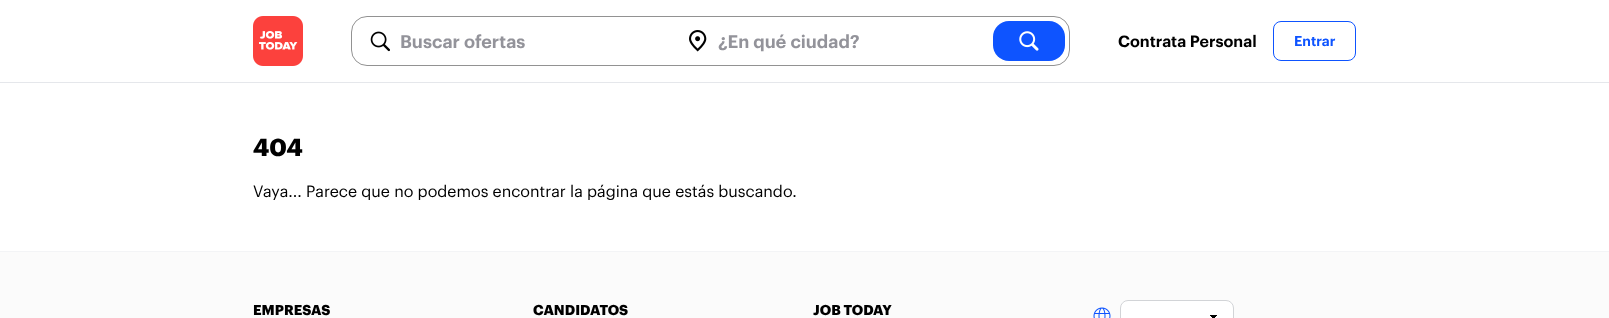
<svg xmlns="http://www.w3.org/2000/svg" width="1609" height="318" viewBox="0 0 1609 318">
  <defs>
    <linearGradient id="g1" gradientUnits="userSpaceOnUse" x1="1213" y1="315" x2="1217" y2="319"><stop offset="0.5" stop-color="#000"/><stop offset="0.5" stop-color="#fff"/></linearGradient>
    <linearGradient id="g2" gradientUnits="userSpaceOnUse" x1="1209" y1="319" x2="1213" y2="315"><stop offset="0.5" stop-color="#fff"/><stop offset="0.5" stop-color="#000"/></linearGradient>
  </defs>
  <rect width="100%" height="100%" fill="#fff"/>
  <path d="M0 82h1609v1H0z" fill="#e5e7eb"/>
  <image x="253" y="16" width="50" height="50" href="img/1.png"/>
  <rect x="351.5" y="16.5" width="718" height="49" rx="15.5" fill="none" stroke="#929292"/>
  <image x="370" y="31" width="20" height="21" href="img/2.png"/>
  <image x="689" y="30" width="18" height="22" href="img/3.png"/>
  <rect x="993" y="21" width="72" height="40" rx="16" fill="#0e54ff"/>
  <image x="1019" y="31" width="20" height="20" href="img/4.png"/>
  <rect x="1273.5" y="21.5" width="82" height="39" rx="7.5" fill="none" stroke="#0e54ff"/>
  <path d="M0 252h1609v66H0z" fill="#fbfbfb"/>
  <path d="M0 251h1609v1H0z" fill="#f3f4f6"/>
  <image x="1093" y="307" width="18" height="11" href="img/5.png"/>
  <rect x="1120" y="300" width="114" height="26" rx="8" fill="#fff"/>
  <path d="M1213 315h4v3H1213z" fill="url(#g1)"/>
  <path d="M1209 315h4v3H1209z" fill="url(#g2)"/>
  <rect x="1120.5" y="300.5" width="113" height="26" rx="7.5" fill="none" stroke="#d2d4d7"/>
  <g font-family="Graphik" font-size="18" font-weight="600" fill="#93939a">
    <text x="400" y="48">Buscar ofertas</text>
    <text x="718" y="48">¿En qué ciudad?</text>
  </g>
  <text x="1118" y="47" font-family="Graphik" font-size="16" font-weight="600" fill="#000">Contrata Personal</text>
  <text x="1294" y="46" font-family="Graphik" font-size="14" font-weight="600" fill="#0e54ff">Entrar</text>
  <text x="253" y="156" font-family="Graphik" font-size="24" font-weight="bold" fill="#000">404</text>
  <text x="253" y="197" font-family="Graphik" font-size="16" fill="#000">Vaya... Parece que no podemos encontrar la página que estás buscando.</text>
  <g font-family="Graphik" font-size="14" font-weight="bold" fill="#000">
    <text x="253" y="315">EMPRESAS</text>
    <text x="533" y="315">CANDIDATOS</text>
    <text x="813" y="315">JOB TODAY</text>
  </g>
</svg>
